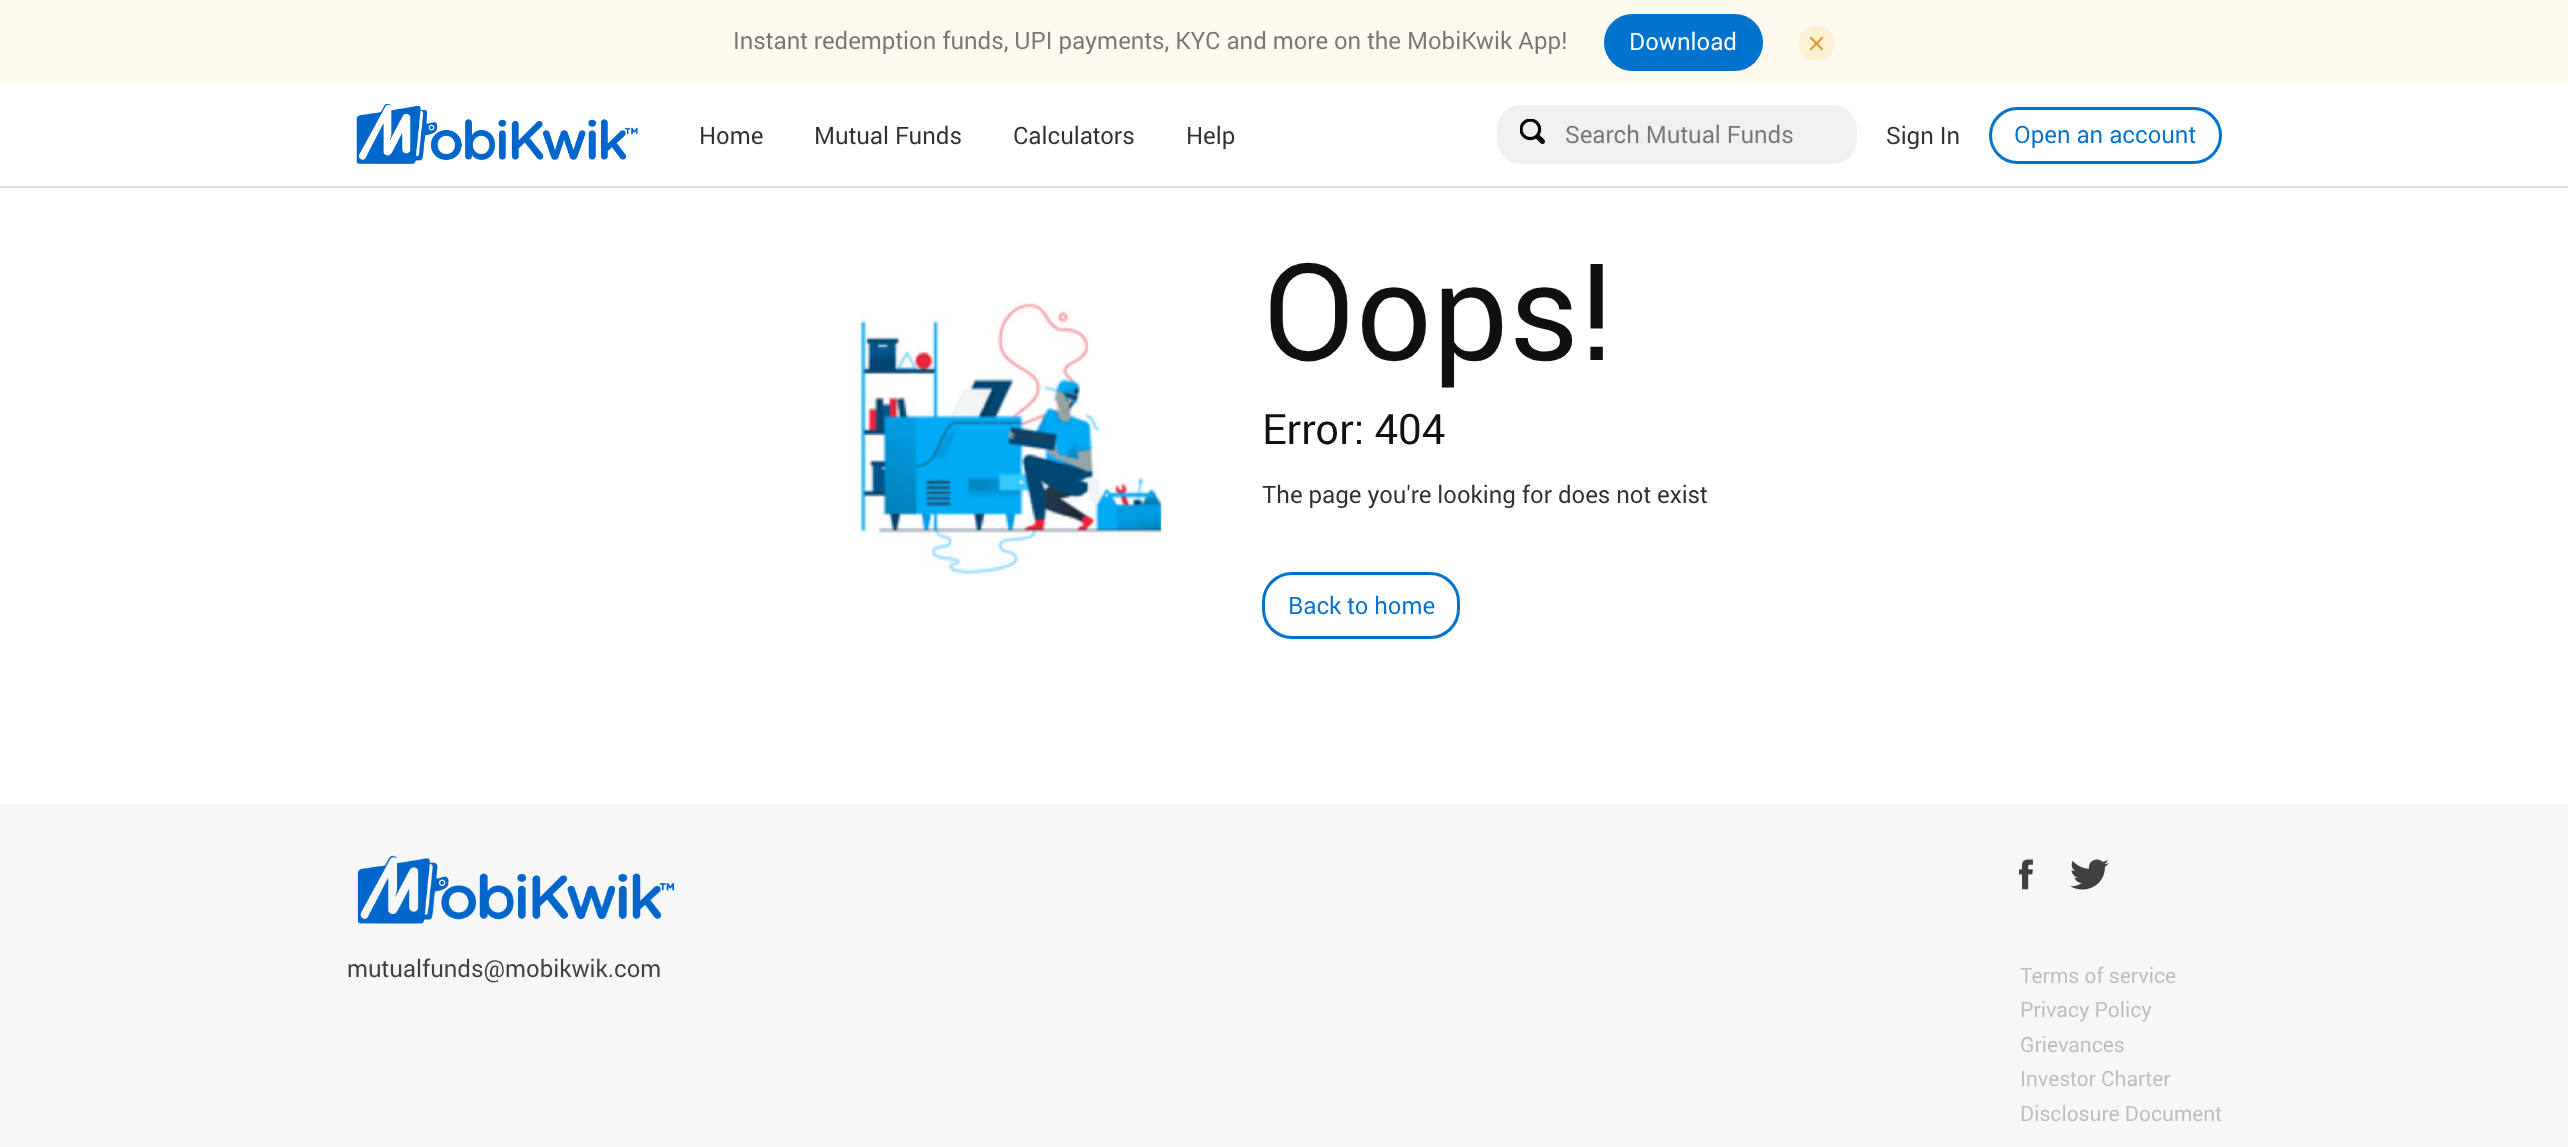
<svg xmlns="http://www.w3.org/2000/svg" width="2568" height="1147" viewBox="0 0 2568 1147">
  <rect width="100%" height="100%" fill="#fff"/>
  <path d="M0 0h2568v83H0z" fill="#fffaed"/>
  <rect x="1605.5" y="15.5" width="156" height="54" rx="27" fill="#0073cf" stroke="#0073cf" stroke-width="3"/>
  <image x="1799" y="26" width="36" height="36" href="img/1.png"/>
  <path d="M0 186h2568v2H0z" fill="#dfdfdf"/>
  <image x="356" y="103" width="282" height="61" href="img/2.png"/>
  <rect x="1497" y="105" width="360" height="59" rx="24" fill="#f0f0f0"/>
  <image x="1520" y="119" width="25" height="25" href="img/3.png"/>
  <rect x="1990.5" y="108.5" width="230" height="54" rx="27" fill="none" stroke="#0073cf" stroke-width="3"/>
  <image x="859" y="303" width="303" height="272" href="img/4.png"/>
  <rect x="1263.5" y="573.5" width="195" height="64" rx="28.5" fill="none" stroke="#0073cf" stroke-width="3"/>
  <path d="M0 804h2568v343H0z" fill="#f7f7f7"/>
  <image x="357" y="855" width="317" height="69" href="img/5.png"/>
  <image x="2019" y="859" width="14" height="31" href="img/6.png"/>
  <image x="2070" y="859" width="39" height="31" href="img/7.png"/>
  <text x="733" y="49" font-family="Roboto" font-size="24" fill="#777">Instant redemption funds, UPI payments, KYC and more on the MobiKwik App!</text>
  <text x="1629" y="50" font-family="Roboto" font-size="24" fill="#fff">Download</text>
  <g font-family="Roboto" font-size="24" fill="#303030">
    <text x="699" y="144">Home</text>
    <text x="814" y="144">Mutual Funds</text>
    <text x="1013" y="144">Calculators</text>
    <text x="1186" y="144">Help</text>
  </g>
  <text x="1565" y="143" font-family="Roboto" font-size="24" fill="#777">Search Mutual Funds</text>
  <text x="1886" y="144" font-family="Roboto" font-size="24" fill="#303030">Sign In</text>
  <text x="2014" y="143" font-family="Roboto" font-size="24" fill="#0073cf">Open an account</text>
  <text x="1262" y="360" font-family="Roboto" font-size="135" fill="#101010">Oops!</text>
  <text x="1262" y="444" font-family="Roboto" font-size="42" fill="#101010">Error: 404</text>
  <text x="1262" y="503" font-family="Roboto" font-size="24" fill="#303030">The page you're looking for does not exist</text>
  <text x="1288" y="614" font-family="Roboto" font-size="24" fill="#0073cf">Back to home</text>
  <text x="347" y="977" font-family="Roboto" font-size="24" fill="#404040">mutualfunds@mobikwik.com</text>
  <g font-family="Roboto" font-size="21" fill="#bdbdbd">
    <text x="2020" y="983">Terms of service</text>
    <text x="2020" y="1017">Privacy Policy</text>
    <text x="2020" y="1052">Grievances</text>
    <text x="2020" y="1086">Investor Charter</text>
    <text x="2020" y="1121">Disclosure Document</text>
  </g>
</svg>
